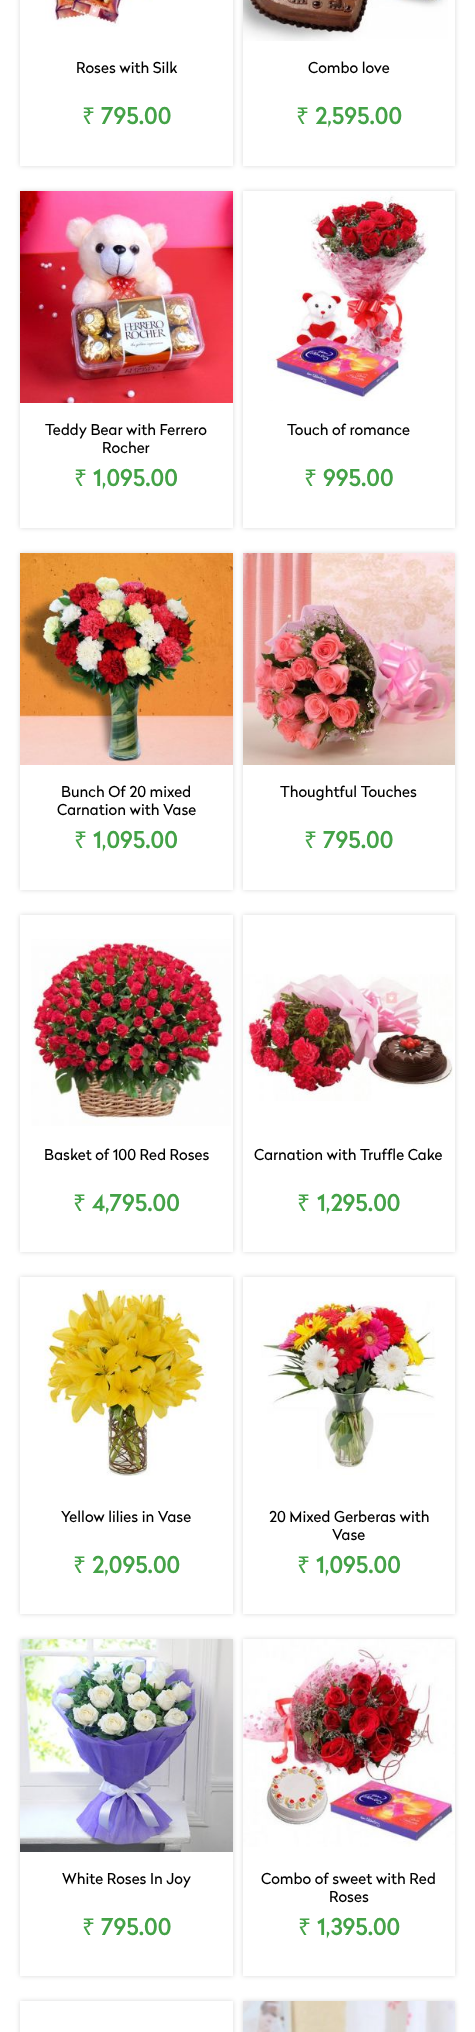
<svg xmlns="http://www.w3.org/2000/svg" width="475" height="2032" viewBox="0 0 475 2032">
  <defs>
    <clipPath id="clip1"><path d="M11 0H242V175H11ZM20-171H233V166H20Z" clip-rule="evenodd"/></clipPath>
    <clipPath id="clip2"><path d="M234 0H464V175H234ZM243-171H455V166H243Z" clip-rule="evenodd"/></clipPath>
    <clipPath id="clip3"><path d="M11 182H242V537H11ZM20 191H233V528H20Z" clip-rule="evenodd"/></clipPath>
    <clipPath id="clip4"><path d="M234 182H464V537H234ZM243 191H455V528H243Z" clip-rule="evenodd"/></clipPath>
    <clipPath id="clip5"><path d="M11 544H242V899H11ZM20 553H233V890H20Z" clip-rule="evenodd"/></clipPath>
    <clipPath id="clip6"><path d="M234 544H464V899H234ZM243 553H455V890H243Z" clip-rule="evenodd"/></clipPath>
    <clipPath id="clip7"><path d="M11 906H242V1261H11ZM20 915H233V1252H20Z" clip-rule="evenodd"/></clipPath>
    <clipPath id="clip8"><path d="M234 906H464V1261H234ZM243 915H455V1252H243Z" clip-rule="evenodd"/></clipPath>
    <clipPath id="clip9"><path d="M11 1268H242V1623H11ZM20 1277H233V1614H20Z" clip-rule="evenodd"/></clipPath>
    <clipPath id="clip10"><path d="M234 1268H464V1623H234ZM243 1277H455V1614H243Z" clip-rule="evenodd"/></clipPath>
    <clipPath id="clip11"><path d="M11 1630H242V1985H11ZM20 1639H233V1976H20Z" clip-rule="evenodd"/></clipPath>
    <clipPath id="clip12"><path d="M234 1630H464V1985H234ZM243 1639H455V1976H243Z" clip-rule="evenodd"/></clipPath>
    <clipPath id="clip13"><path d="M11 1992H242V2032H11ZM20 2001H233V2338H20Z" clip-rule="evenodd"/></clipPath>
  </defs>
  <rect width="100%" height="100%" fill="#fff"/>
  <g clip-path="url(#clip1)">
    <path d="M20 -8h213v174H20z" fill="#00000026" filter="blur(2.5px)"/>
  </g>
  <image x="45" y="0" width="108" height="27" href="img/1.png"/>
  <g clip-path="url(#clip2)">
    <path d="M243 -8h212v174H243z" fill="#00000026" filter="blur(2.5px)"/>
  </g>
  <image x="243" y="0" width="205" height="41" href="img/2.png"/>
  <g clip-path="url(#clip3)">
    <path d="M20 191h213v337H20z" fill="#00000026" filter="blur(2.5px)"/>
  </g>
  <image x="20" y="191" width="213" height="212" href="img/3.png"/>
  <g clip-path="url(#clip4)">
    <path d="M243 191h212v337H243z" fill="#00000026" filter="blur(2.5px)"/>
  </g>
  <image x="267" y="191" width="162" height="210" href="img/4.png"/>
  <g clip-path="url(#clip5)">
    <path d="M20 553h213v337H20z" fill="#00000026" filter="blur(2.5px)"/>
  </g>
  <image x="20" y="553" width="213" height="212" href="img/5.png"/>
  <g clip-path="url(#clip6)">
    <path d="M243 553h212v337H243z" fill="#00000026" filter="blur(2.5px)"/>
  </g>
  <image x="243" y="553" width="212" height="212" href="img/6.png"/>
  <g clip-path="url(#clip7)">
    <path d="M20 915h213v337H20z" fill="#00000026" filter="blur(2.5px)"/>
  </g>
  <image x="31" y="939" width="200" height="187" href="img/7.png"/>
  <g clip-path="url(#clip8)">
    <path d="M243 915h212v337H243z" fill="#00000026" filter="blur(2.5px)"/>
  </g>
  <image x="243" y="974" width="210" height="127" href="img/8.png"/>
  <g clip-path="url(#clip9)">
    <path d="M20 1277h213v337H20z" fill="#00000026" filter="blur(2.5px)"/>
  </g>
  <image x="44" y="1289" width="163" height="187" href="img/9.png"/>
  <g clip-path="url(#clip10)">
    <path d="M243 1277h212v337H243z" fill="#00000026" filter="blur(2.5px)"/>
  </g>
  <image x="260" y="1301" width="176" height="174" href="img/10.png"/>
  <g clip-path="url(#clip11)">
    <path d="M20 1639h213v337H20z" fill="#00000026" filter="blur(2.5px)"/>
  </g>
  <image x="20" y="1639" width="213" height="213" href="img/11.png"/>
  <g clip-path="url(#clip12)">
    <path d="M243 1639h212v337H243z" fill="#00000026" filter="blur(2.5px)"/>
  </g>
  <image x="243" y="1639" width="212" height="208" href="img/12.png"/>
  <g clip-path="url(#clip13)">
    <path d="M20 2001h213v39H20z" fill="#00000026" filter="blur(2.5px)"/>
  </g>
  <path d="M243 2001h212v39H243z" fill="#00000026" filter="blur(2.5px)"/>
  <image x="243" y="2001" width="212" height="31" href="img/13.png"/>
  <text x="76" y="73" font-family="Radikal" font-size="15" fill="#000">Roses with Silk</text>
  <text x="82" y="124" font-family="Noto Sans" font-size="23" fill="#44a247">₹</text>
  <text x="101" y="124" font-family="Radikal" font-size="23" font-weight="500" fill="#44a247">795.00</text>
  <text x="308" y="73" font-family="Radikal" font-size="15" fill="#000">Combo love</text>
  <text x="296" y="124" font-family="Noto Sans" font-size="23" fill="#44a247">₹</text>
  <text x="315" y="124" font-family="Radikal" font-size="23" font-weight="500" fill="#44a247">2,595.00</text>
  <g font-family="Radikal" font-size="15" fill="#000">
    <text x="45" y="435">Teddy Bear with Ferrero</text>
    <text x="102" y="453">Rocher</text>
  </g>
  <text x="74" y="486" font-family="Noto Sans" font-size="23" fill="#44a247">₹</text>
  <text x="93" y="486" font-family="Radikal" font-size="23" font-weight="500" fill="#44a247">1,095.00</text>
  <text x="287" y="435" font-family="Radikal" font-size="15" fill="#000">Touch of romance</text>
  <text x="304" y="486" font-family="Noto Sans" font-size="23" fill="#44a247">₹</text>
  <text x="323" y="486" font-family="Radikal" font-size="23" font-weight="500" fill="#44a247">995.00</text>
  <g font-family="Radikal" font-size="15" fill="#000">
    <text x="61" y="797">Bunch Of 20 mixed</text>
    <text x="57" y="815">Carnation with Vase</text>
  </g>
  <text x="74" y="848" font-family="Noto Sans" font-size="23" fill="#44a247">₹</text>
  <text x="93" y="848" font-family="Radikal" font-size="23" font-weight="500" fill="#44a247">1,095.00</text>
  <text x="280" y="797" font-family="Radikal" font-size="15" fill="#000">Thoughtful Touches</text>
  <text x="304" y="848" font-family="Noto Sans" font-size="23" fill="#44a247">₹</text>
  <text x="323" y="848" font-family="Radikal" font-size="23" font-weight="500" fill="#44a247">795.00</text>
  <text x="44" y="1160" font-family="Radikal" font-size="15" fill="#000">Basket of 100 Red Roses</text>
  <text x="73" y="1211" font-family="Noto Sans" font-size="23" fill="#44a247">₹</text>
  <text x="92" y="1211" font-family="Radikal" font-size="23" font-weight="500" fill="#44a247">4,795.00</text>
  <text x="254" y="1160" font-family="Radikal" font-size="15" fill="#000">Carnation with Truffle Cake</text>
  <text x="297" y="1211" font-family="Noto Sans" font-size="23" fill="#44a247">₹</text>
  <text x="317" y="1211" font-family="Radikal" font-size="23" font-weight="500" fill="#44a247">1,295.00</text>
  <text x="61" y="1522" font-family="Radikal" font-size="15" fill="#000">Yellow lilies in Vase</text>
  <text x="73" y="1573" font-family="Noto Sans" font-size="23" fill="#44a247">₹</text>
  <text x="92" y="1573" font-family="Radikal" font-size="23" font-weight="500" fill="#44a247">2,095.00</text>
  <g font-family="Radikal" font-size="15" fill="#000">
    <text x="269" y="1522">20 Mixed Gerberas with</text>
    <text x="332" y="1540">Vase</text>
  </g>
  <text x="297" y="1573" font-family="Noto Sans" font-size="23" fill="#44a247">₹</text>
  <text x="316" y="1573" font-family="Radikal" font-size="23" font-weight="500" fill="#44a247">1,095.00</text>
  <text x="62" y="1884" font-family="Radikal" font-size="15" fill="#000">White Roses In Joy</text>
  <text x="82" y="1935" font-family="Noto Sans" font-size="23" fill="#44a247">₹</text>
  <text x="101" y="1935" font-family="Radikal" font-size="23" font-weight="500" fill="#44a247">795.00</text>
  <g font-family="Radikal" font-size="15" fill="#000">
    <text x="261" y="1884">Combo of sweet with Red</text>
    <text x="329" y="1902">Roses</text>
  </g>
  <text x="298" y="1935" font-family="Noto Sans" font-size="23" fill="#44a247">₹</text>
  <text x="317" y="1935" font-family="Radikal" font-size="23" font-weight="500" fill="#44a247">1,395.00</text>
</svg>
